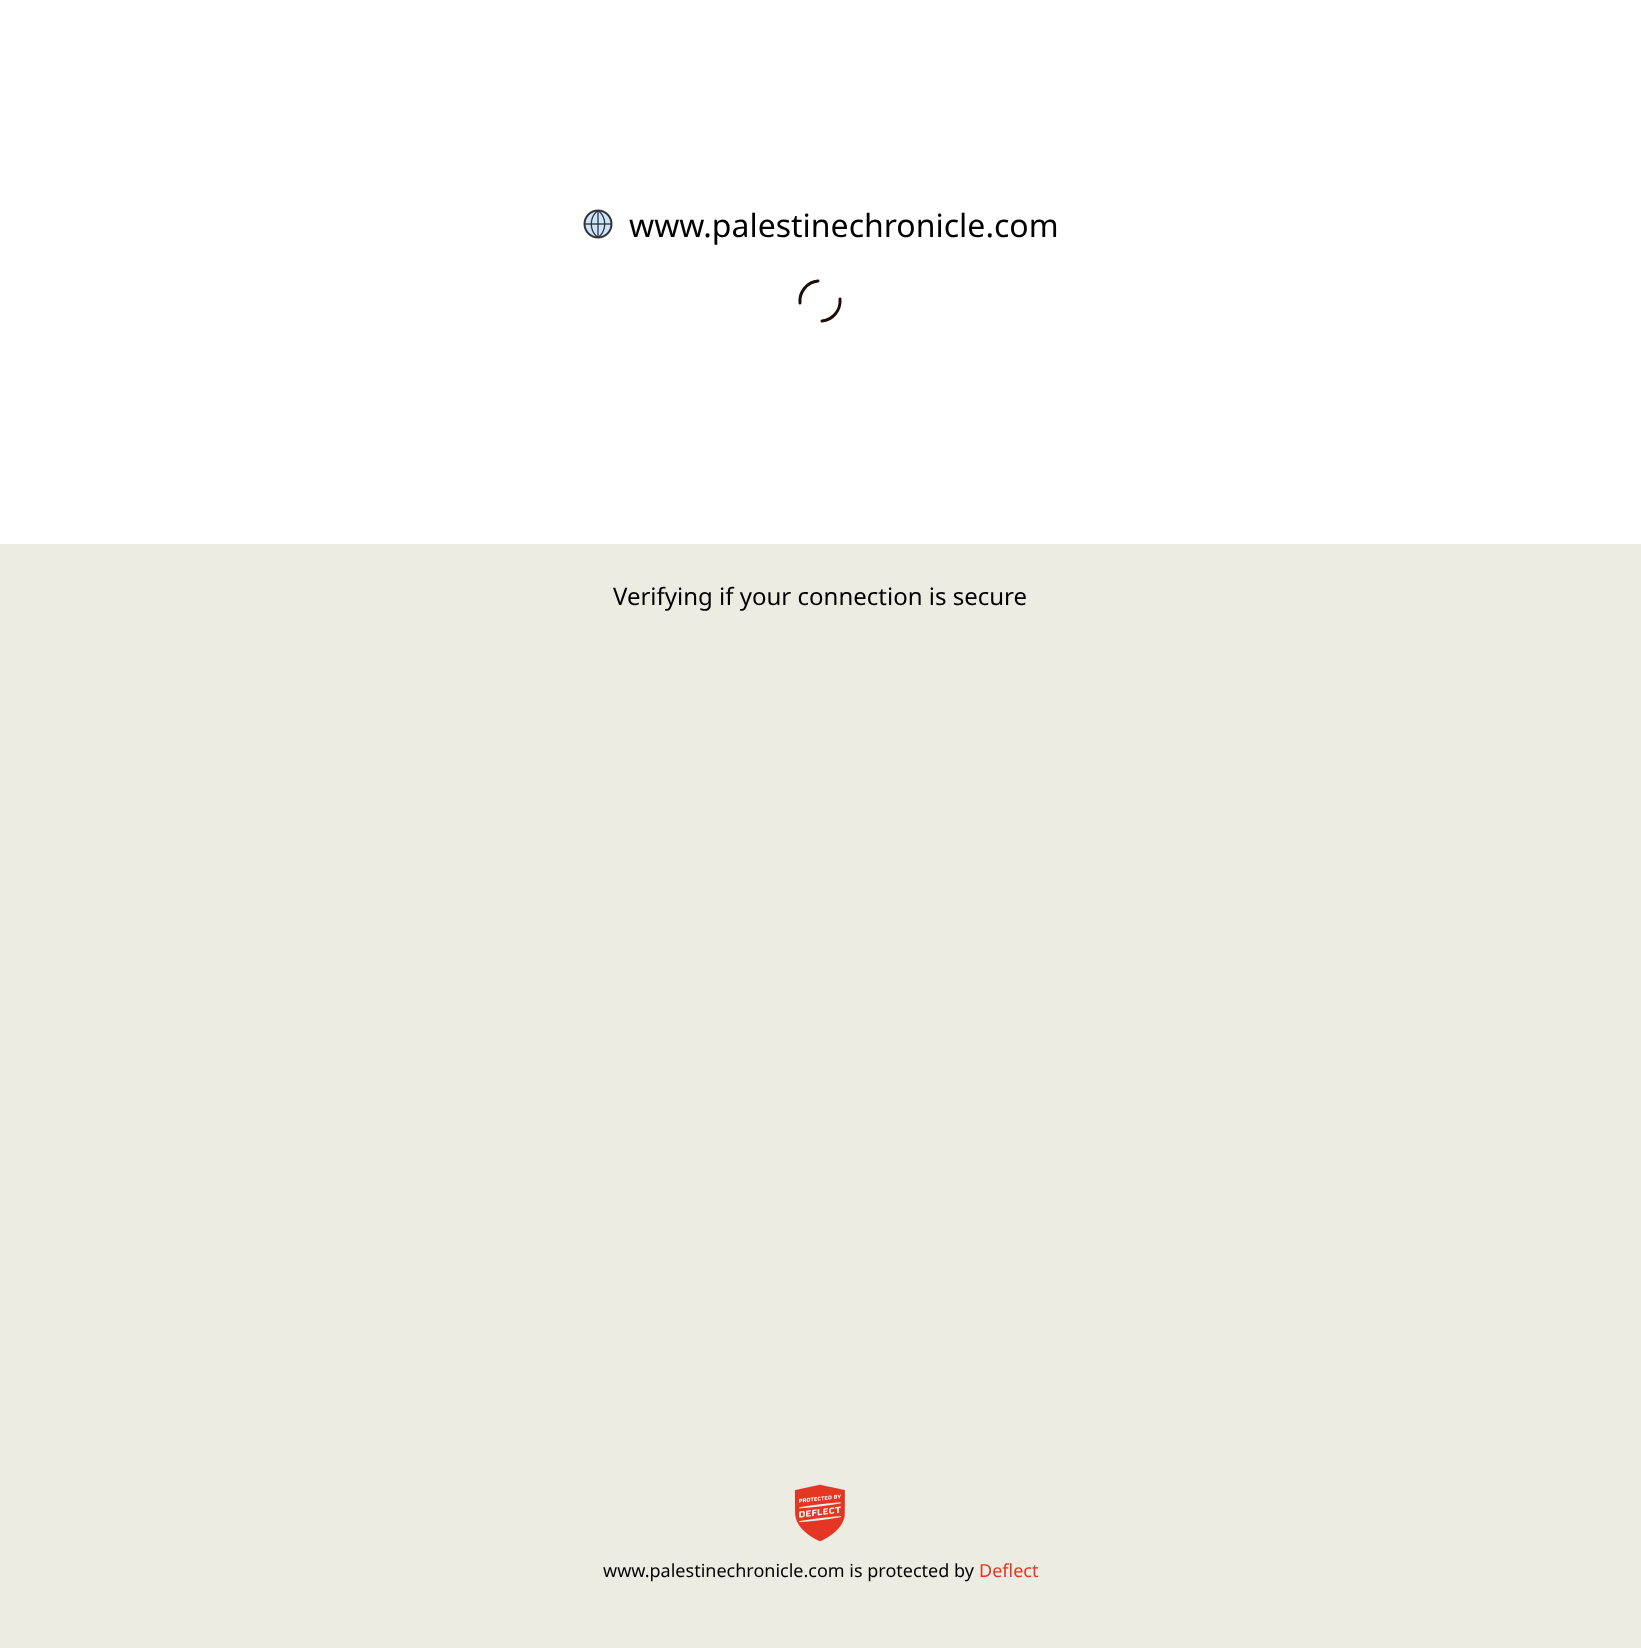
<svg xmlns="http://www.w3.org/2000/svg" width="1641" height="1648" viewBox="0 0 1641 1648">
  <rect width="100%" height="100%" fill="#fff"/>
  <image x="583" y="209" width="30" height="30" href="img/1.png"/>
  <path d="M840 299C841 310 833 320 822 321M800 303C799 292 807 282 818 281" fill="none" stroke="#1d0e0b" stroke-width="3" stroke-linecap="round"/>
  <path d="M0 544h1641v1104H0z" fill="#ecece2"/>
  <image x="795" y="1484" width="50" height="58" href="img/2.png"/>
  <text x="629" y="237" font-family="Noto Sans" font-size="32" fill="#000">www.palestinechronicle.com</text>
  <text x="613" y="605" font-family="Noto Sans" font-size="24" fill="#000">Verifying if your connection is secure</text>
  <text x="603" y="1577" font-family="Noto Sans" font-size="18" fill="#000">www.palestinechronicle.com is protected by</text>
  <text x="979" y="1577" font-family="Noto Sans" font-size="18" fill="#e33624">Deflect</text>
</svg>
